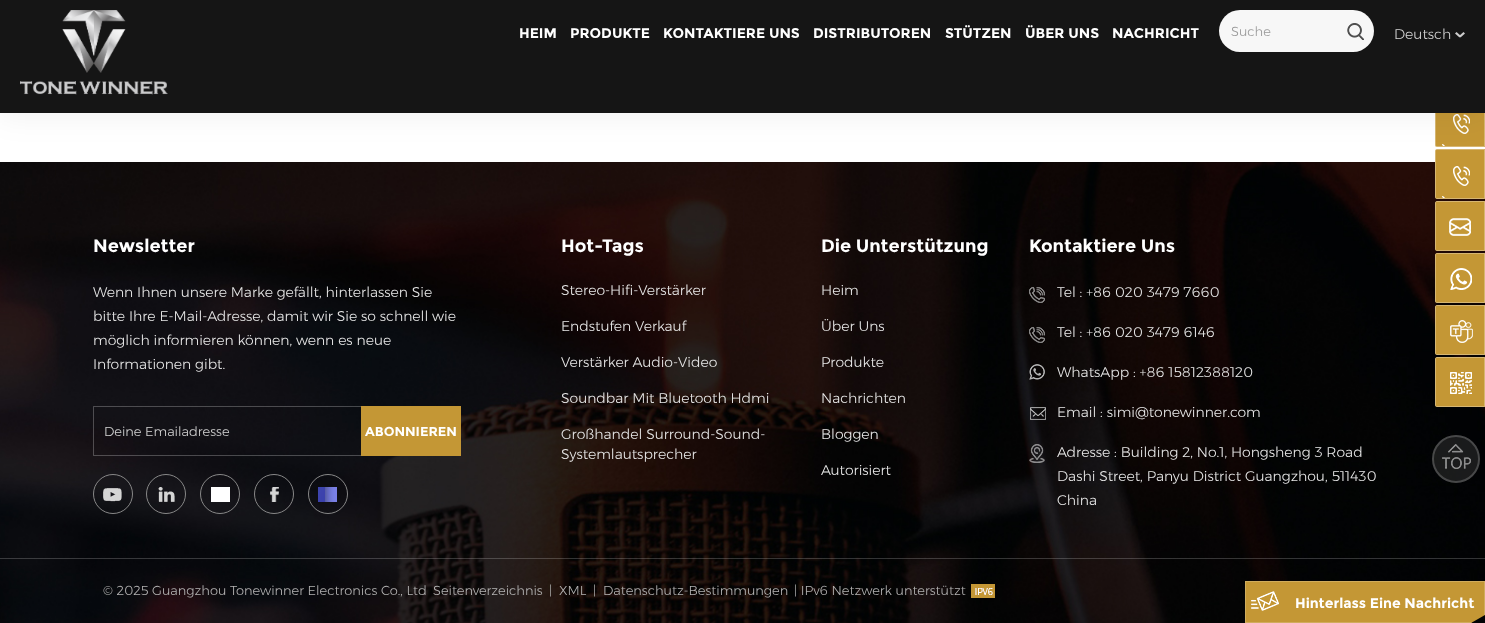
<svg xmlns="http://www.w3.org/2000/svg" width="1485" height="623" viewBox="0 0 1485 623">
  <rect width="100%" height="100%" fill="#fff"/>
  <path d="M1437 97H1485V147H1437C1436 147 1435 146 1435 145V99C1435 98 1436 97 1437 97Z" fill="#c49735"/>
  <path d="M1437 97.5H1484.5V146.5H1437C1436 146.5 1435.5 146 1435.5 145V99C1435.5 98 1436 97.5 1437 97.5Z" fill="none" stroke="#ffffff4d"/>
  <image x="1442" y="114" width="28" height="32" href="img/14.png"/>
  <image x="0" y="162" width="1485" height="461" href="img/3.png"/>
  <path d="M1437 149H1485V199H1437C1436 199 1435 198 1435 197V151C1435 150 1436 149 1437 149Z" fill="#c49735"/>
  <path d="M1437 149.5H1484.5V198.5H1437C1436 198.5 1435.5 198 1435.5 197V151C1435.5 150 1436 149.5 1437 149.5Z" fill="none" stroke="#ffffff4d"/>
  <path d="M-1 1h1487v115H-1z" fill="#0000000f" filter="blur(15px)"/>
  <path d="M0 0h1485v113H0z" fill="#151515"/>
  <image x="20" y="10" width="148" height="85" href="img/1.png"/>
  <rect x="1219" y="10" width="155" height="42" rx="21" fill="#f7f7f7"/>
  <image x="1347" y="23" width="17" height="17" href="img/2.png"/>
  <path d="M1459 36L1463.5 32L1465 33.5L1460.5 37.5Z" fill="#ccc"/>
  <path d="M1456.5 32L1461 36L1459.5 37.5L1455 33.5Z" fill="#ccc"/>
  <path d="M93.5 406.5h367v49H93.5z" fill="none" stroke="#ffffff40"/>
  <path d="M361 406h100v50H361z" fill="#c49735"/>
  <circle cx="113" cy="494" r="19.5" fill="none" stroke="#888"/>
  <image x="103" y="488" width="19" height="14" href="img/4.png"/>
  <circle cx="166" cy="494" r="19.5" fill="none" stroke="#888"/>
  <image x="158" y="487" width="17" height="15" href="img/5.png"/>
  <circle cx="220" cy="494" r="19.5" fill="none" stroke="#888"/>
  <path d="M211 487h19v15H211z" fill="#fff"/>
  <circle cx="274" cy="494" r="19.5" fill="none" stroke="#888"/>
  <image x="270" y="487" width="9" height="15" href="img/6.png"/>
  <circle cx="328" cy="494" r="19.5" fill="none" stroke="#888"/>
  <image x="318" y="487" width="19" height="15" href="img/7.png"/>
  <image x="1029" y="287" width="16" height="16" href="img/8.png"/>
  <image x="1029" y="327" width="16" height="16" href="img/9.png"/>
  <image x="1029" y="364" width="16" height="16" href="img/10.png"/>
  <image x="1030" y="407" width="16" height="13" href="img/11.png"/>
  <image x="1029" y="444" width="16" height="19" href="img/12.png"/>
  <path d="M0 558h1485v1H0z" fill="#ffffff33"/>
  <image x="971" y="584" width="24" height="14" href="img/13.png"/>
  <image x="1442" y="166" width="28" height="32" href="img/14.png"/>
  <path d="M1437 201H1485V251H1437C1436 251 1435 250 1435 249V203C1435 202 1436 201 1437 201Z" fill="#c49735"/>
  <path d="M1437 201.5H1484.5V250.5H1437C1436 250.5 1435.5 250 1435.5 249V203C1435.5 202 1436 201.5 1437 201.5Z" fill="none" stroke="#ffffff4d"/>
  <image x="1449" y="218" width="22" height="18" href="img/15.png"/>
  <path d="M1437 253H1485V303H1437C1436 303 1435 302 1435 301V255C1435 254 1436 253 1437 253Z" fill="#c49735"/>
  <path d="M1437 253.5H1484.5V302.5H1437C1436 302.5 1435.5 302 1435.5 301V255C1435.5 254 1436 253.5 1437 253.5Z" fill="none" stroke="#ffffff4d"/>
  <image x="1450" y="268" width="22" height="22" href="img/16.png"/>
  <path d="M1437 305H1485V355H1437C1436 355 1435 354 1435 353V307C1435 306 1436 305 1437 305Z" fill="#c49735"/>
  <path d="M1437 305.5H1484.5V354.5H1437C1436 354.5 1435.5 354 1435.5 353V307C1435.5 306 1436 305.5 1437 305.5Z" fill="none" stroke="#ffffff4d"/>
  <image x="1450" y="320" width="23" height="23" href="img/17.png"/>
  <path d="M1437 357H1485V407H1437C1436 407 1435 406 1435 405V359C1435 358 1436 357 1437 357Z" fill="#c49735"/>
  <path d="M1437 357.5H1484.5V406.5H1437C1436 406.5 1435.5 406 1435.5 405V359C1435.5 358 1436 357.5 1437 357.5Z" fill="none" stroke="#ffffff4d"/>
  <image x="1450" y="372" width="22" height="22" href="img/18.png"/>
  <circle cx="1456" cy="459" r="24" fill="#33333380"/>
  <circle cx="1456" cy="459" r="23" fill="none" stroke="#ffffff33" stroke-width="2"/>
  <image x="1442" y="444" width="29" height="25" href="img/19.png"/>
  <path d="M1245 581V623H1471L1485 615V581Z" fill="#c49735"/>
  <path d="M1245 581V623H1471L1472 622H1246V582H1484V615H1485V581Z" fill="#d0ac5d"/>
  <image x="1251" y="591" width="28" height="20" href="img/20.png"/>
  <g font-family="Montserrat" font-size="14" font-weight="bold" fill="#fff">
    <text x="519" y="38">HEIM</text>
    <text x="570" y="38">PRODUKTE</text>
    <text x="663" y="38">KONTAKTIERE UNS</text>
    <text x="813" y="38">DISTRIBUTOREN</text>
    <text x="945" y="38">STÜTZEN</text>
    <text x="1025" y="38">ÜBER UNS</text>
    <text x="1112" y="38">NACHRICHT</text>
  </g>
  <text x="1231" y="36" font-family="Montserrat" font-size="13" font-weight="300" fill="#999">Suche</text>
  <text x="1394" y="39" font-family="Montserrat" font-size="14" font-weight="300" fill="#d5d5d5">Deutsch</text>
  <text x="93" y="252" font-family="Montserrat" font-size="18" font-weight="bold" fill="#fff">Newsletter</text>
  <g font-family="Montserrat" font-size="14" font-weight="300" fill="#e9e9e9">
    <text x="93" y="297">Wenn Ihnen unsere Marke gefällt, hinterlassen Sie</text>
    <text x="93" y="321">bitte Ihre E-Mail-Adresse, damit wir Sie so schnell wie</text>
    <text x="93" y="345">möglich informieren können, wenn es neue</text>
    <text x="93" y="369">Informationen gibt.</text>
  </g>
  <text x="104" y="436" font-family="Montserrat" font-size="13" font-weight="300" fill="#d5d5d5">Deine Emailadresse</text>
  <text x="365" y="436" font-family="Montserrat" font-size="13" font-weight="bold" fill="#fff">ABONNIEREN</text>
  <text x="561" y="252" font-family="Montserrat" font-size="18" font-weight="bold" fill="#fff">Hot-Tags</text>
  <g font-family="Montserrat" font-size="14" font-weight="300" fill="#e9e9e9">
    <text x="561" y="295">Stereo-Hifi-Verstärker</text>
    <text x="561" y="331">Endstufen Verkauf</text>
    <text x="561" y="367">Verstärker Audio-Video</text>
    <text x="561" y="403">Soundbar Mit Bluetooth Hdmi</text>
    <text x="561" y="439">Großhandel Surround-Sound-</text>
    <text x="561" y="459">Systemlautsprecher</text>
  </g>
  <text x="821" y="252" font-family="Montserrat" font-size="18" font-weight="bold" fill="#fff">Die Unterstützung</text>
  <g font-family="Montserrat" font-size="14" font-weight="300" fill="#e9e9e9">
    <text x="821" y="295">Heim</text>
    <text x="821" y="331">Über Uns</text>
    <text x="821" y="367">Produkte</text>
    <text x="821" y="403">Nachrichten</text>
    <text x="821" y="439">Bloggen</text>
    <text x="821" y="475">Autorisiert</text>
  </g>
  <text x="1029" y="252" font-family="Montserrat" font-size="18" font-weight="bold" fill="#fff">Kontaktiere Uns</text>
  <g font-family="Montserrat" font-size="14" font-weight="300" fill="#e9e9e9">
    <text x="1057" y="297">Tel : +86 020 3479 7660</text>
    <text x="1057" y="337">Tel : +86 020 3479 6146</text>
    <text x="1057" y="377">WhatsApp : +86 15812388120</text>
    <text x="1057" y="417">Email : simi@tonewinner.com</text>
    <text x="1057" y="457">Adresse : Building 2, No.1, Hongsheng 3 Road</text>
    <text x="1057" y="481">Dashi Street, Panyu District Guangzhou, 511430</text>
    <text x="1057" y="505">China</text>
  </g>
  <g font-family="Montserrat" font-size="13" font-weight="300" fill="#b4b3b3">
    <text x="103" y="595">© 2025 Guangzhou Tonewinner Electronics Co., Ltd</text>
    <text x="433" y="595">Seitenverzeichnis</text>
    <text x="549" y="595">|</text>
    <text x="559" y="595">XML</text>
    <text x="593" y="595">|</text>
    <text x="603" y="595">Datenschutz-Bestimmungen</text>
    <text x="794" y="595">| IPv6 Netzwerk unterstützt</text>
  </g>
  <text x="1295" y="608" font-family="Montserrat" font-size="14" font-weight="bold" fill="#fff">Hinterlass Eine Nachricht</text>
</svg>
